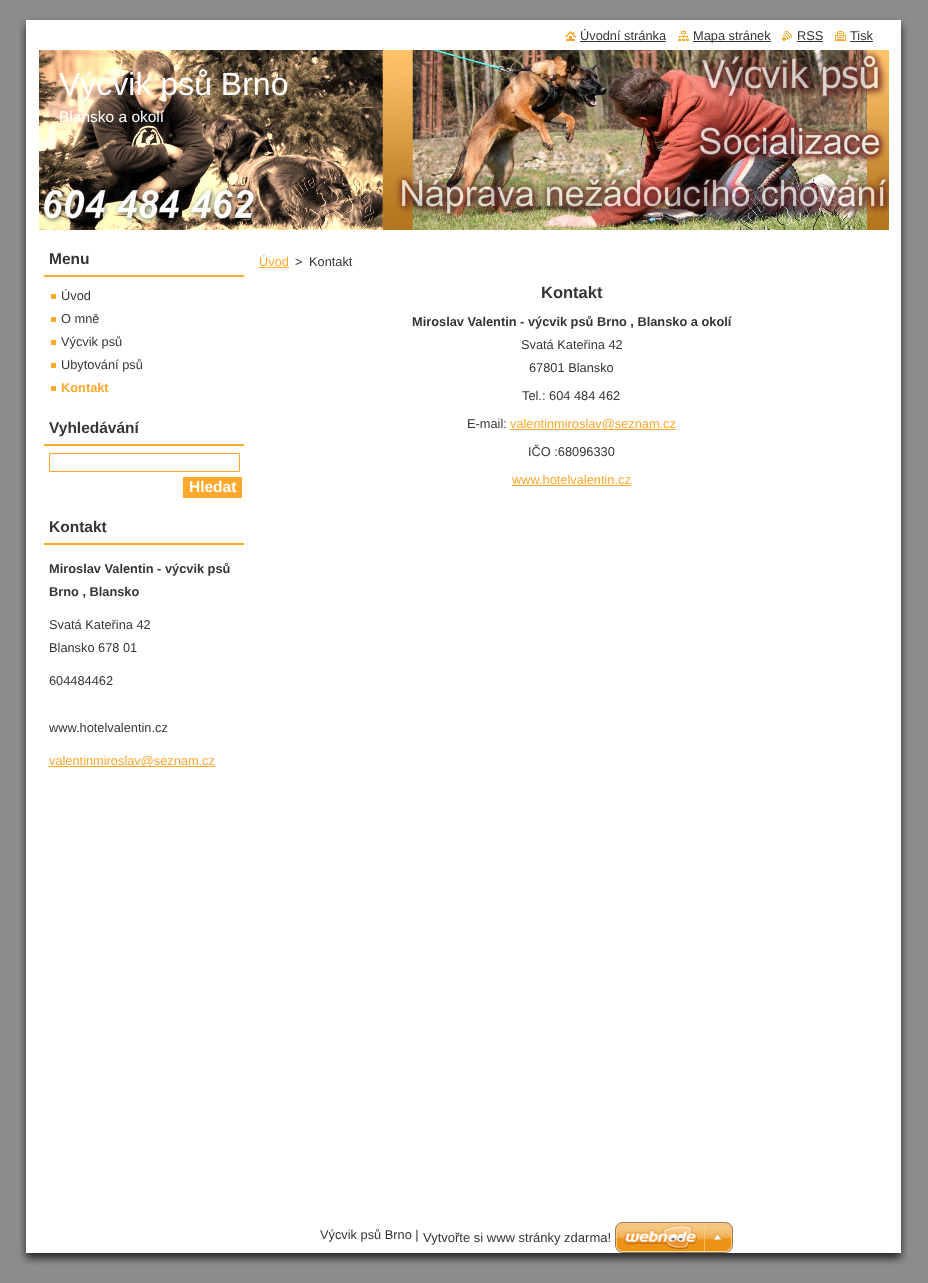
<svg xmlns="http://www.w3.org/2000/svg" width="928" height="1283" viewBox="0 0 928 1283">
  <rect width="100%" height="100%" fill="#8c8c8c"/>
  <image x="19" y="31" width="889" height="1216" href="img/1.png"/>
  <image x="19" y="15" width="889" height="16" href="img/2.png"/>
  <image x="565" y="31" width="11" height="10" href="img/3.png"/>
  <path d="M580 41h86v1H580z" fill="#353535"/>
  <image x="678" y="31" width="11" height="10" href="img/4.png"/>
  <path d="M693 41h78v1H693z" fill="#353535"/>
  <image x="782" y="31" width="10" height="10" href="img/5.png"/>
  <path d="M797 41h26v1H797z" fill="#353535"/>
  <image x="835" y="31" width="11" height="10" href="img/6.png"/>
  <path d="M850 41h23v1H850z" fill="#353535"/>
  <image x="39" y="50" width="850" height="180" href="img/7.png"/>
  <path d="M44 275h200v2H44z" fill="#ffa82c"/>
  <path d="M51 294h5v5H51z" fill="#ffa82d"/>
  <path d="M51 317h5v5H51z" fill="#ffa82d"/>
  <path d="M51 340h5v5H51z" fill="#ffa82d"/>
  <path d="M51 363h5v5H51z" fill="#ffa82d"/>
  <path d="M51 386h5v5H51z" fill="#ffa82d"/>
  <path d="M44 444h200v2H44z" fill="#ffa82c"/>
  <path d="M49.5 453.5h190v18H49.5z" fill="none" stroke="#ffa82c"/>
  <path d="M183 477h59v21H183z" fill="#ffa82c"/>
  <path d="M44 543h200v2H44z" fill="#ffa82c"/>
  <path d="M49 766h166v1H49z" fill="#ffa82c"/>
  <path d="M259 267h30v1H259z" fill="#ffa82c"/>
  <path d="M510 429h166v1H510z" fill="#ffa82c"/>
  <path d="M512 485h119v1H512z" fill="#ffa82c"/>
  <image x="19" y="1247" width="889" height="18" href="img/8.png"/>
  <image x="615" y="1222" width="118" height="31" href="img/9.png"/>
  <g font-family="Liberation Sans" font-size="12.8" fill="#353535">
    <text x="580" y="40">Úvodní stránka</text>
    <text x="693" y="40">Mapa stránek</text>
    <text x="797" y="40">RSS</text>
    <text x="850" y="40">Tisk</text>
  </g>
  <text x="59" y="95" font-family="Liberation Sans" font-size="32" fill="#fff">Výcvik psů Brno</text>
  <text x="59" y="122" font-family="Liberation Sans" font-size="15.5" fill="#fff">Blansko a okolí</text>
  <text x="49" y="264" font-family="Liberation Sans" font-size="15.5" font-weight="bold" fill="#353535">Menu</text>
  <g font-family="Liberation Sans" font-size="12.8" fill="#353535">
    <text x="61" y="300">Úvod</text>
    <text x="61" y="323">O mně</text>
    <text x="61" y="346">Výcvik psů</text>
    <text x="61" y="369">Ubytování psů</text>
  </g>
  <text x="61" y="392" font-family="Liberation Sans" font-size="12.8" font-weight="bold" fill="#ffa82c">Kontakt</text>
  <text x="49" y="433" font-family="Liberation Sans" font-size="15.5" font-weight="bold" fill="#353535">Vyhledávání</text>
  <text x="189" y="492" font-family="Liberation Sans" font-size="15.5" font-weight="bold" fill="#fff">Hledat</text>
  <text x="49" y="532" font-family="Liberation Sans" font-size="15.5" font-weight="bold" fill="#353535">Kontakt</text>
  <g font-family="Liberation Sans" font-size="12.8" font-weight="bold" fill="#353535">
    <text x="49" y="573">Miroslav Valentin - výcvik psů</text>
    <text x="49" y="596">Brno , Blansko</text>
  </g>
  <g font-family="Liberation Sans" font-size="12.8" fill="#353535">
    <text x="49" y="629">Svatá Kateřina 42</text>
    <text x="49" y="652">Blansko 678 01</text>
    <text x="49" y="685">604484462</text>
    <text x="49" y="732">www.hotelvalentin.cz</text>
  </g>
  <g font-family="Liberation Sans" font-size="12.8" fill="#ffa82c">
    <text x="49" y="765">valentinmiroslav@seznam.cz</text>
    <text x="259" y="266">Úvod</text>
  </g>
  <g font-family="Liberation Sans" font-size="12.8" fill="#353535">
    <text x="295" y="266">&gt;</text>
    <text x="309" y="266">Kontakt</text>
  </g>
  <text x="541" y="298" font-family="Liberation Sans" font-size="16.5" font-weight="bold" fill="#353535">Kontakt</text>
  <text x="412" y="326" font-family="Liberation Sans" font-size="12.8" font-weight="bold" fill="#353535">Miroslav Valentin - výcvik psů Brno , Blansko a okolí</text>
  <g font-family="Liberation Sans" font-size="12.8" fill="#353535">
    <text x="521" y="349">Svatá Kateřina 42</text>
    <text x="529" y="372">67801 Blansko</text>
    <text x="522" y="400">Tel.: 604 484 462</text>
    <text x="467" y="428">E-mail:</text>
  </g>
  <text x="510" y="428" font-family="Liberation Sans" font-size="12.8" fill="#ffa82c">valentinmiroslav@seznam.cz</text>
  <text x="528" y="456" font-family="Liberation Sans" font-size="12.8" fill="#353535">IČO :68096330</text>
  <text x="512" y="484" font-family="Liberation Sans" font-size="12.8" fill="#ffa82c">www.hotelvalentin.cz</text>
  <text x="320" y="1239" font-family="Liberation Sans" font-size="12.8" fill="#353535">Výcvik psů Brno |</text>
  <text x="423" y="1242" font-family="Liberation Sans" font-size="13" fill="#353535">Vytvořte si www stránky zdarma!</text>
</svg>
